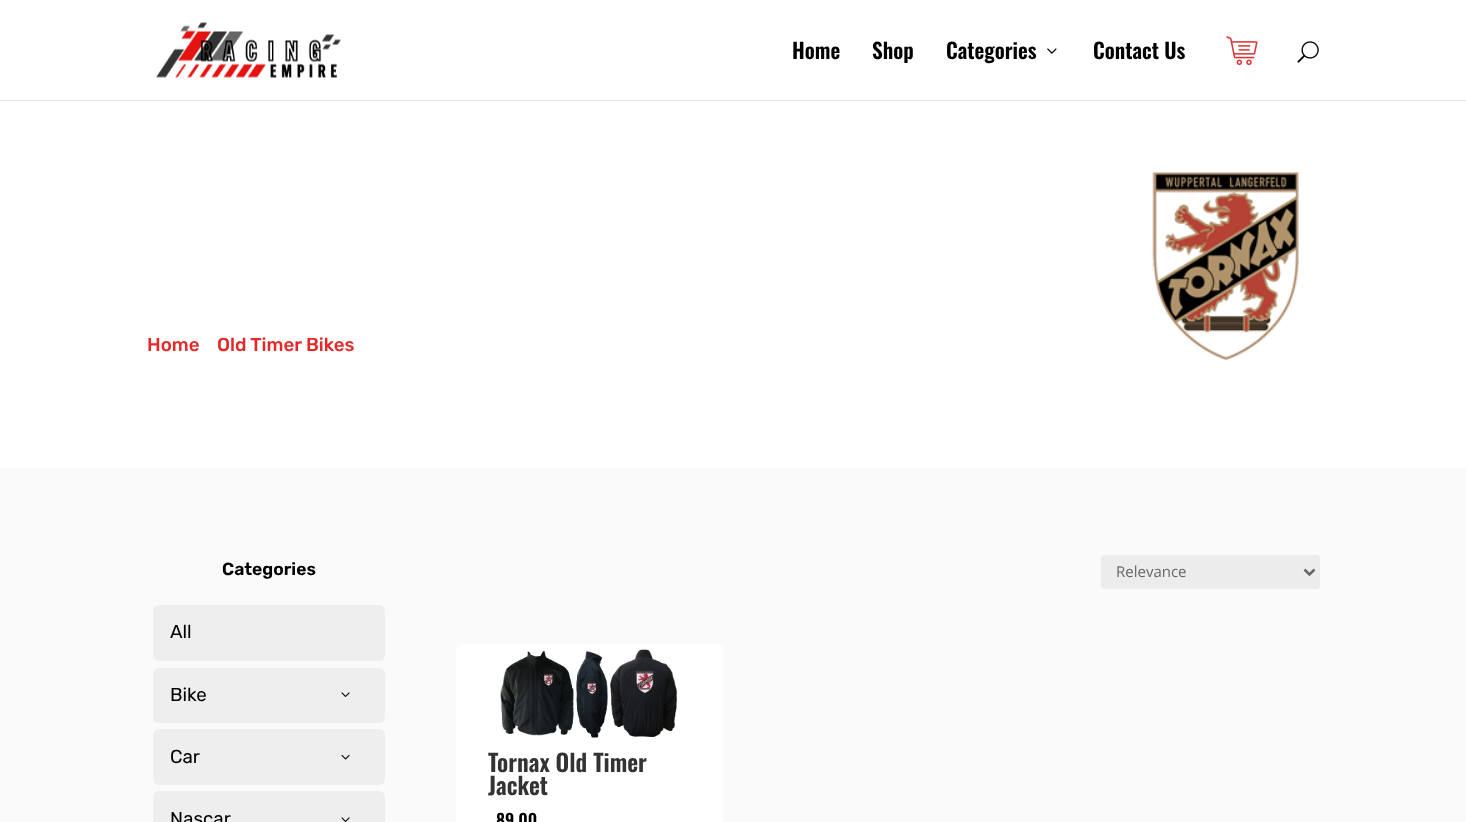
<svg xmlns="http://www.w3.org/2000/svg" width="1466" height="822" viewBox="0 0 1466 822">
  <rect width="100%" height="100%" fill="#fff"/>
  <path d="M0 100h1466v1H0z" fill="#e6e6e6"/>
  <image x="156" y="22" width="185" height="56" href="img/1.png"/>
  <image x="1047" y="48" width="10" height="6" href="img/2.png"/>
  <image x="1226" y="36" width="32" height="30" href="img/3.png"/>
  <image x="1297" y="41" width="22" height="22" href="img/4.png"/>
  <image x="1152" y="172" width="147" height="188" href="img/5.png"/>
  <path d="M0 468h1466v354H0z" fill="#fafafa"/>
  <rect x="153" y="605" width="232" height="56" rx="6" fill="#eee"/>
  <rect x="153" y="668" width="232" height="55" rx="6" fill="#eee"/>
  <image x="341" y="692" width="9" height="5" href="img/6.png"/>
  <rect x="153" y="729" width="232" height="56" rx="6" fill="#eee"/>
  <image x="341" y="754" width="9" height="6" href="img/7.png"/>
  <rect x="153" y="791" width="232" height="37" rx="6" fill="#eee"/>
  <image x="341" y="817" width="9" height="5" href="img/6.png"/>
  <rect x="1101" y="555" width="219" height="34" rx="4" fill="#ececec"/>
  <path d="M1304.5 569.5L1309.5 574.5L1314.5 569.5" fill="none" stroke="#666" stroke-width="2.5"/>
  <rect x="456" y="644" width="267" height="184" rx="6" fill="#fff"/>
  <image x="500" y="649" width="178" height="89" href="img/8.png"/>
  <g font-family="Oswald" font-size="21.25" font-weight="600" fill="#000">
    <text x="792" y="59">Home</text>
    <text x="872" y="59">Shop</text>
    <text x="946" y="59">Categories</text>
    <text x="1093" y="59">Contact Us</text>
  </g>
  <g font-family="Rubik" font-size="18.75" font-weight="500" fill="#e52828">
    <text x="147" y="351">Home</text>
    <text x="217" y="351">Old Timer Bikes</text>
  </g>
  <text x="222" y="575" font-family="Rubik" font-size="17.5" font-weight="600" fill="#000">Categories</text>
  <g font-family="Rubik" font-size="18.75" fill="#000">
    <text x="170" y="638">All</text>
    <text x="170" y="701">Bike</text>
    <text x="170" y="763">Car</text>
    <text x="170" y="825">Nascar</text>
  </g>
  <text x="1116" y="577" font-family="Open Sans" font-size="15" fill="#666">Relevance</text>
  <g font-family="Oswald" font-size="23.75" font-weight="600" fill="#333">
    <text x="488" y="772">Tornax Old Timer</text>
    <text x="488" y="795">Jacket</text>
  </g>
  <text x="496" y="827" font-family="Oswald" font-size="17.5" font-weight="600" fill="#000">89.00</text>
</svg>
